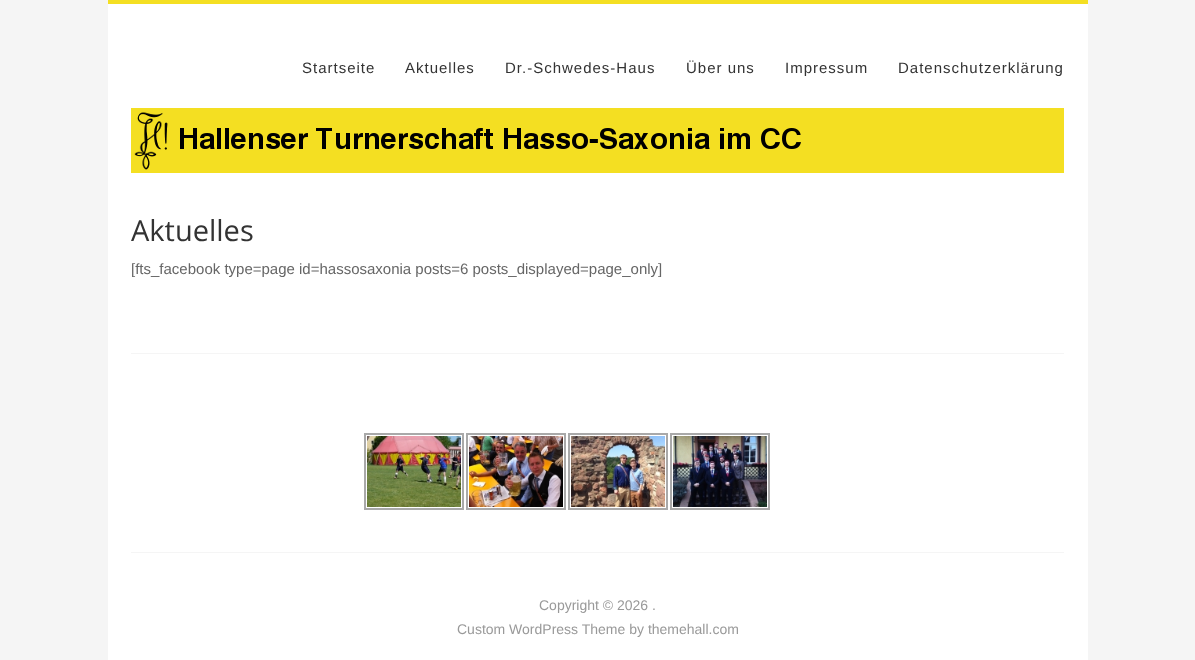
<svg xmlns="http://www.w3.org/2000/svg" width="1195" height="660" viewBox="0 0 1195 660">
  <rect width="100%" height="100%" fill="#f5f5f5"/>
  <path d="M108 4h980v656H108z" fill="#fff"/>
  <path d="M108 0h980v4H108z" fill="#f4df22"/>
  <path d="M131 108h933v65H131z" fill="#f4df22"/>
  <image x="134" y="112" width="667" height="58" href="img/1.png"/>
  <path d="M131 353h933v1H131z" fill="#f5f5f5"/>
  <path d="M365 434h98v75H365z" fill="none" stroke="#a9a9a9" stroke-width="2"/>
  <image x="367" y="436" width="94" height="71" href="img/2.png"/>
  <path d="M467 434h98v75H467z" fill="none" stroke="#a9a9a9" stroke-width="2"/>
  <image x="469" y="436" width="94" height="71" href="img/3.png"/>
  <path d="M569 434h98v75H569z" fill="none" stroke="#a9a9a9" stroke-width="2"/>
  <image x="571" y="436" width="94" height="71" href="img/4.png"/>
  <path d="M671 434h98v75H671z" fill="none" stroke="#a9a9a9" stroke-width="2"/>
  <image x="673" y="436" width="94" height="71" href="img/5.png"/>
  <path d="M131 552h933v1H131z" fill="#f5f5f5"/>
  <g font-family="Liberation Sans" font-size="15" letter-spacing="1" fill="#333">
    <text x="302" y="73">Startseite</text>
    <text x="405" y="73">Aktuelles</text>
    <text x="505" y="73">Dr.-Schwedes-Haus</text>
    <text x="686" y="73">Über uns</text>
    <text x="785" y="73">Impressum</text>
    <text x="898" y="73">Datenschutzerklärung</text>
  </g>
  <text x="131" y="241" font-family="Open Sans" font-size="29" fill="#333">Aktuelles</text>
  <text x="131" y="274" font-family="Liberation Sans" font-size="15" fill="#666">[fts_facebook type=page id=hassosaxonia posts=6 posts_displayed=page_only]</text>
  <g font-family="Liberation Sans" font-size="14" fill="#999">
    <text x="539" y="610">Copyright © 2026 .</text>
    <text x="457" y="634">Custom WordPress Theme by themehall.com</text>
  </g>
</svg>
